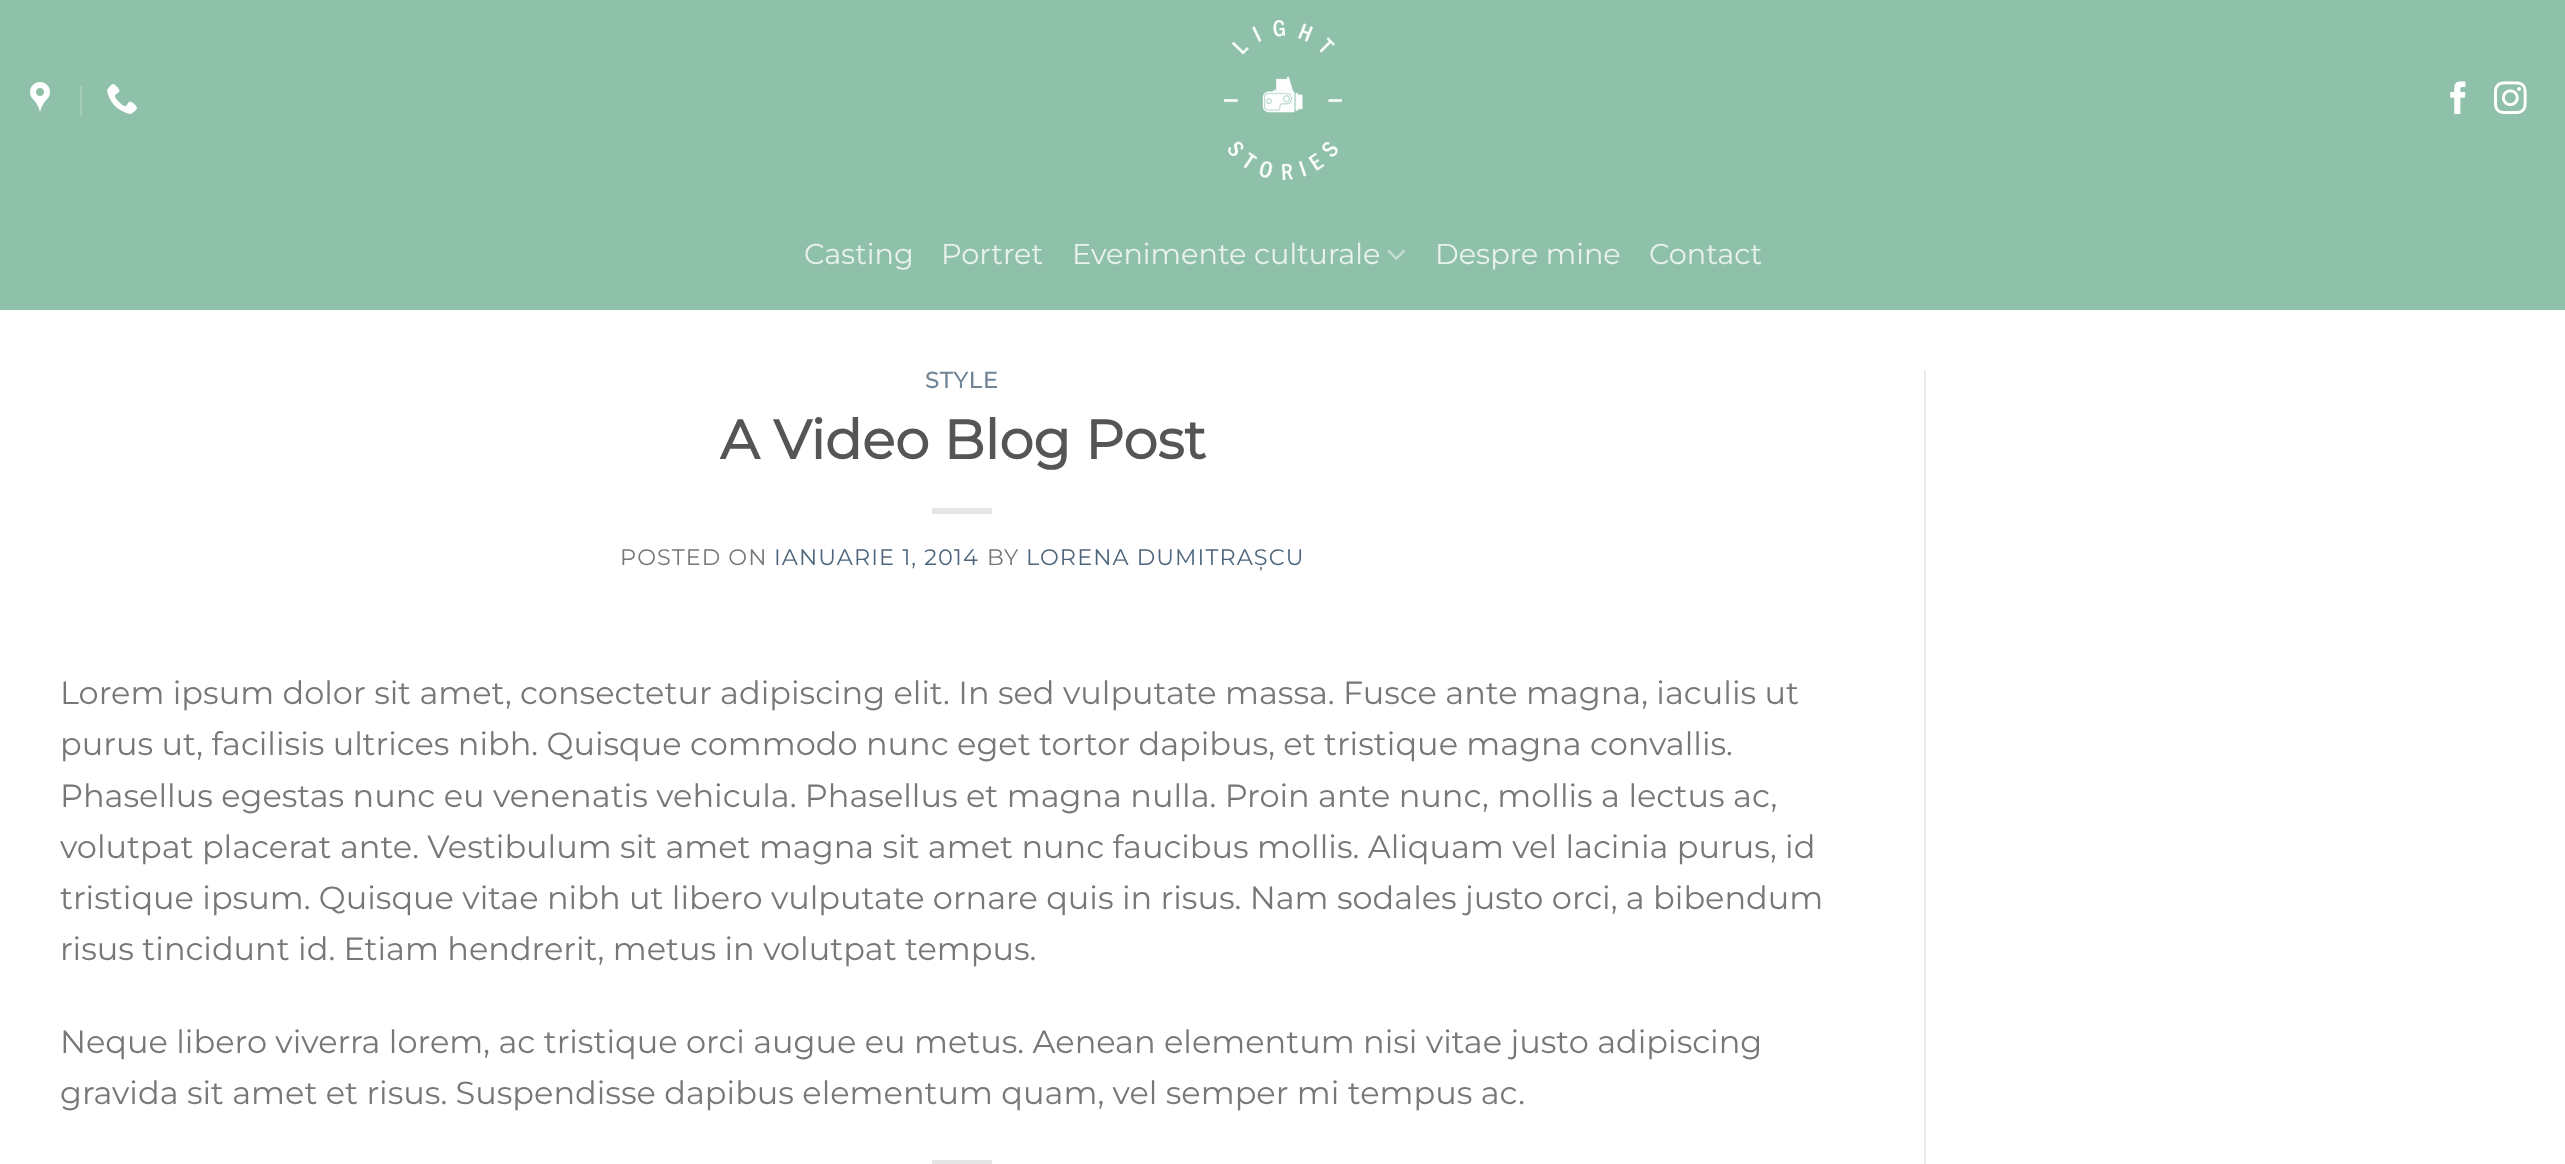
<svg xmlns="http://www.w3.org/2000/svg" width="2565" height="1164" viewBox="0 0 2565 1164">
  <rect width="100%" height="100%" fill="#fff"/>
  <path d="M0 0h2565v310H0z" fill="#8fc0a9"/>
  <image x="30" y="82" width="20" height="32" href="img/1.png"/>
  <path d="M80 86h2v30H80z" fill="#a5cdba"/>
  <image x="107" y="84" width="30" height="30" href="img/2.png"/>
  <image x="1224" y="20" width="118" height="160" href="img/3.png"/>
  <image x="2450" y="81" width="16" height="34" href="img/4.png"/>
  <image x="2494" y="81" width="33" height="34" href="img/5.png"/>
  <image x="1387" y="249" width="18" height="11" href="img/6.png"/>
  <path d="M932 508h60v6H932z" fill="#e6e6e6"/>
  <path d="M932 1160h60v4H932z" fill="#e6e6e6"/>
  <path d="M1924 370h2v794H1924z" fill="#ececec"/>
  <g font-family="Montserrat" font-size="28.75" font-weight="100" fill="#e9f2ee">
    <text x="804" y="264">Casting</text>
    <text x="941" y="264">Portret</text>
    <text x="1072" y="264">Evenimente culturale</text>
    <text x="1435" y="264">Despre mine</text>
    <text x="1649" y="264">Contact</text>
  </g>
  <text x="925" y="388" font-family="Montserrat" font-size="22.4" font-weight="bold" letter-spacing="1.1" fill="#718495">STYLE</text>
  <text x="720" y="459" font-family="Montserrat" font-size="54.5" font-weight="bold" fill="#555">A Video Blog Post</text>
  <text x="620" y="565" font-family="Montserrat" font-size="22.4" font-weight="100" letter-spacing="1.1" fill="#777">POSTED ON</text>
  <text x="774" y="565" font-family="Montserrat" font-size="22.4" font-weight="100" letter-spacing="1.1" fill="#4e657b">IANUARIE 1, 2014</text>
  <text x="987" y="565" font-family="Montserrat" font-size="22.4" font-weight="100" letter-spacing="1.1" fill="#777">BY</text>
  <text x="1026" y="565" font-family="Montserrat" font-size="22.4" font-weight="100" letter-spacing="1.1" fill="#4e657b">LORENA DUMITRAȘCU</text>
  <g font-family="Montserrat" font-size="32" font-weight="100" fill="#777">
    <text x="60" y="704">Lorem ipsum dolor sit amet, consectetur adipiscing elit. In sed vulputate massa. Fusce ante magna, iaculis ut</text>
    <text x="60" y="755">purus ut, facilisis ultrices nibh. Quisque commodo nunc eget tortor dapibus, et tristique magna convallis.</text>
    <text x="60" y="807">Phasellus egestas nunc eu venenatis vehicula. Phasellus et magna nulla. Proin ante nunc, mollis a lectus ac,</text>
    <text x="60" y="858">volutpat placerat ante. Vestibulum sit amet magna sit amet nunc faucibus mollis. Aliquam vel lacinia purus, id</text>
    <text x="60" y="909">tristique ipsum. Quisque vitae nibh ut libero vulputate ornare quis in risus. Nam sodales justo orci, a bibendum</text>
    <text x="60" y="960">risus tincidunt id. Etiam hendrerit, metus in volutpat tempus.</text>
    <text x="60" y="1053">Neque libero viverra lorem, ac tristique orci augue eu metus. Aenean elementum nisi vitae justo adipiscing</text>
    <text x="60" y="1104">gravida sit amet et risus. Suspendisse dapibus elementum quam, vel semper mi tempus ac.</text>
  </g>
</svg>
